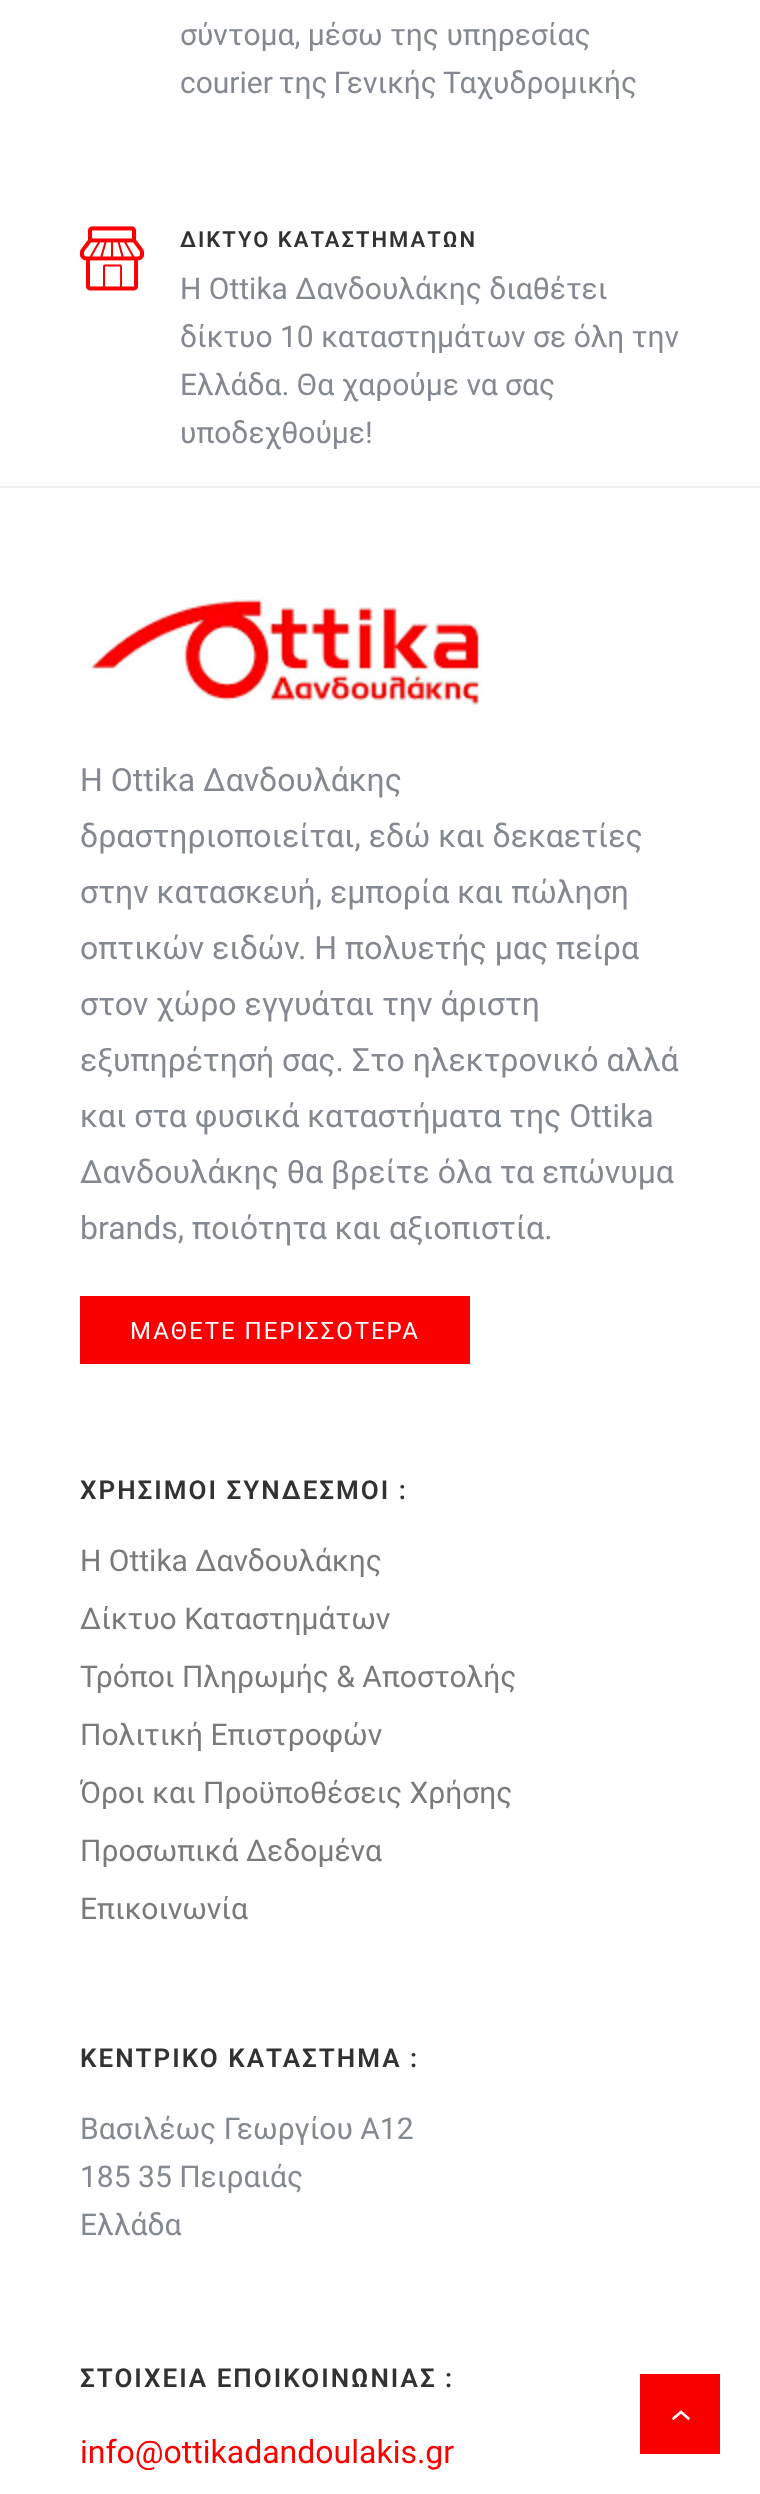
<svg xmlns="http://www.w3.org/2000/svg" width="760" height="2494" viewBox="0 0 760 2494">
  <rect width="100%" height="100%" fill="#fff"/>
  <image x="80" y="226" width="65" height="65" href="img/1.png"/>
  <path d="M0 486h760v2H0z" fill="#efefef"/>
  <image x="88" y="596" width="394" height="110" href="img/2.png"/>
  <path d="M80 1296h390v68H80z" fill="#fa0001"/>
  <path d="M640 2374h80v80H640z" fill="#fa0001"/>
  <path d="M688.5 2418.5L681 2412L673.5 2418.5" fill="none" stroke="#fff" stroke-width="2.6" stroke-linecap="round"/>
  <g font-family="Roboto" font-size="30" fill="#848991">
    <text x="180" y="45">σύντομα, μέσω της υπηρεσίας</text>
    <text x="180" y="93" word-spacing="-1.5">courier της Γενικής Ταχυδρομικής</text>
  </g>
  <text x="180" y="247" font-family="Roboto" font-size="22" font-weight="600" letter-spacing="2" fill="#313233">ΔΙΚΤΥΟ ΚΑΤΑΣΤΗΜΑΤΩΝ</text>
  <g font-family="Roboto" font-size="30" fill="#848991">
    <text x="180" y="299">Η Ottika Δανδουλάκης διαθέτει</text>
    <text x="180" y="347">δίκτυο 10 καταστημάτων σε όλη την</text>
    <text x="180" y="395">Ελλάδα. Θα χαρούμε να σας</text>
    <text x="180" y="443">υποδεχθούμε!</text>
  </g>
  <g font-family="Roboto" font-size="32" fill="#848991">
    <text x="80" y="791">Η Ottika Δανδουλάκης</text>
    <text x="80" y="847">δραστηριοποιείται, εδώ και δεκαετίες</text>
    <text x="80" y="903">στην κατασκευή, εμπορία και πώληση</text>
    <text x="80" y="959">οπτικών ειδών. Η πολυετής μας πείρα</text>
    <text x="80" y="1015">στον χώρο εγγυάται την άριστη</text>
    <text x="80" y="1071">εξυπηρέτησή σας. Στο ηλεκτρονικό αλλά</text>
    <text x="80" y="1127">και στα φυσικά καταστήματα της Ottika</text>
    <text x="80" y="1183">Δανδουλάκης θα βρείτε όλα τα επώνυμα</text>
    <text x="80" y="1239">brands, ποιότητα και αξιοπιστία.</text>
  </g>
  <text x="130" y="1339" font-family="Roboto" font-size="24" letter-spacing="2" fill="#fff">ΜΑΘΕΤΕ ΠΕΡΙΣΣΟΤΕΡΑ</text>
  <text x="80" y="1499" font-family="Roboto" font-size="26" font-weight="600" letter-spacing="2" fill="#313233">ΧΡΗΣΙΜΟΙ ΣΥΝΔΕΣΜΟΙ :</text>
  <g font-family="Roboto" font-size="30" fill="#7a7a7a">
    <text x="80" y="1571">Η Ottika Δανδουλάκης</text>
    <text x="80" y="1629">Δίκτυο Καταστημάτων</text>
    <text x="80" y="1687">Τρόποι Πληρωμής &amp; Αποστολής</text>
    <text x="80" y="1745">Πολιτική Επιστροφών</text>
    <text x="80" y="1803">Όροι και Προϋποθέσεις Χρήσης</text>
    <text x="80" y="1861">Προσωπικά Δεδομένα</text>
    <text x="80" y="1919">Επικοινωνία</text>
  </g>
  <text x="80" y="2067" font-family="Roboto" font-size="26" font-weight="600" letter-spacing="2" fill="#313233">ΚΕΝΤΡΙΚΟ ΚΑΤΑΣΤΗΜΑ :</text>
  <g font-family="Roboto" font-size="30" fill="#848991">
    <text x="80" y="2139">Βασιλέως Γεωργίου Α12</text>
    <text x="80" y="2187">185 35 Πειραιάς</text>
    <text x="80" y="2235">Ελλάδα</text>
  </g>
  <text x="80" y="2387" font-family="Roboto" font-size="26" font-weight="600" letter-spacing="2" fill="#313233">ΣΤΟΙΧΕΙΑ ΕΠΟΙΚΟΙΝΩΝΙΑΣ :</text>
  <text x="80" y="2463" font-family="Roboto" font-size="32" fill="#fa0001">info@ottikadandoulakis.gr</text>
</svg>
